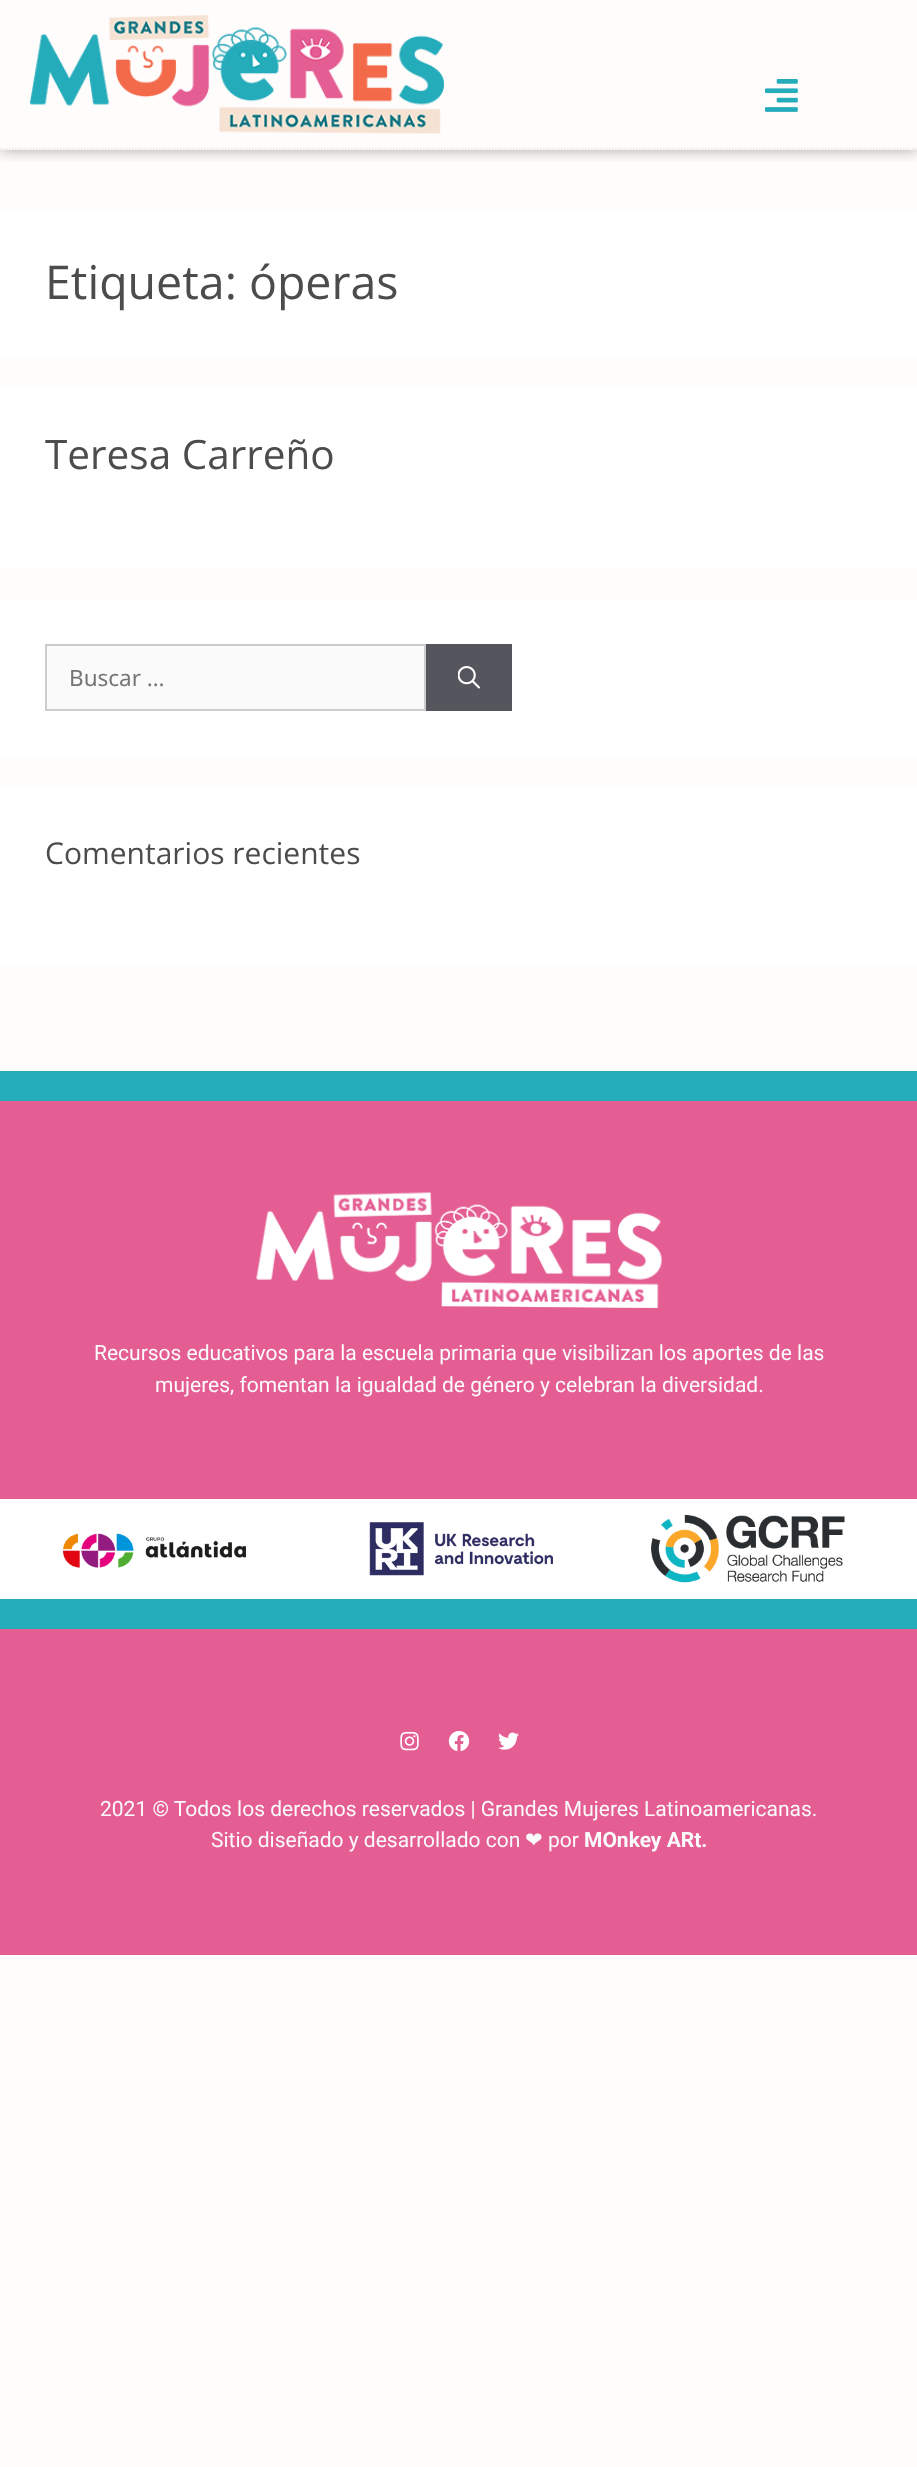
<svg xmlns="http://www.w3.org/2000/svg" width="917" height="2467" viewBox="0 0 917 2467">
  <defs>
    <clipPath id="clip1"><path d="M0 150h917v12H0z"/></clipPath>
  </defs>
  <rect width="100%" height="100%" fill="#fffcfc"/>
  <g clip-path="url(#clip1)">
    <path d="M0 0h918v150H0z" fill="#00000057" filter="blur(7.5px)"/>
  </g>
  <path d="M0 149H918" fill="none" stroke="#e1e1e1" stroke-width="1.5" stroke-dasharray="1.5 1.5"/>
  <image x="30" y="15" width="414" height="119" href="img/1.png"/>
  <image x="765" y="79" width="33" height="33" href="img/2.png"/>
  <path d="M0 210h917v146H0z" fill="#fff"/>
  <path d="M0 386h917v183H0z" fill="#fff"/>
  <path d="M0 599h917v157H0z" fill="#fff"/>
  <path d="M46 645h379v65H46z" fill="#fafafa" stroke="#ccc" stroke-width="2"/>
  <path d="M426 644h86v67H426z" fill="#55555e"/>
  <image x="458" y="666" width="22" height="23" href="img/3.png"/>
  <path d="M0 786h917v180H0z" fill="#fff"/>
  <path d="M0 1071h917v30H0z" fill="#25acbb"/>
  <path d="M0 1101h917v398H0z" fill="#e45e94"/>
  <image x="256" y="1192" width="406" height="116" href="img/4.png"/>
  <path d="M0 1499h917v100H0z" fill="#fff"/>
  <image x="63" y="1533" width="183" height="35" href="img/5.png"/>
  <image x="369" y="1522" width="184" height="54" href="img/6.png"/>
  <image x="651" y="1515" width="194" height="68" href="img/7.png"/>
  <path d="M0 1599h917v30H0z" fill="#25acbb"/>
  <path d="M0 1629h917v326H0z" fill="#e45e94"/>
  <image x="400" y="1731" width="19" height="20" href="img/8.png"/>
  <image x="448" y="1731" width="22" height="21" href="img/9.png"/>
  <image x="498" y="1732" width="21" height="18" href="img/10.png"/>
  <text x="45" y="299" font-family="Open Sans" font-size="46.5" fill="#4c4c4c">Etiqueta: óperas</text>
  <text x="45" y="469" font-family="Open Sans" font-size="40.5" fill="#4c4c4c">Teresa Carreño</text>
  <text x="69" y="686" font-family="Noto Sans" font-size="22.5" fill="#757575">Buscar …</text>
  <text x="45" y="864" font-family="Open Sans" font-size="30" fill="#4c4c4c">Comentarios recientes</text>
  <g font-family="Roboto" font-size="21" fill="#fbfbfb">
    <text x="94" y="1360">Recursos educativos para la escuela primaria que visibilizan los aportes de las</text>
    <text x="155" y="1392">mujeres, fomentan la igualdad de género y celebran la diversidad.</text>
    <text x="100" y="1816">2021 © Todos los derechos reservados | Grandes Mujeres Latinoamericanas.</text>
    <text x="211" y="1847">Sitio diseñado y desarrollado con</text>
  </g>
  <text x="525" y="1847" font-family="DejaVu Sans" font-size="21" fill="#fbfbfb">❤</text>
  <text x="548" y="1847" font-family="Roboto" font-size="21" fill="#fbfbfb">por</text>
  <text x="584" y="1847" font-family="Roboto" font-size="21" font-weight="bold" fill="#fbfbfb">MOnkey ARt.</text>
</svg>
